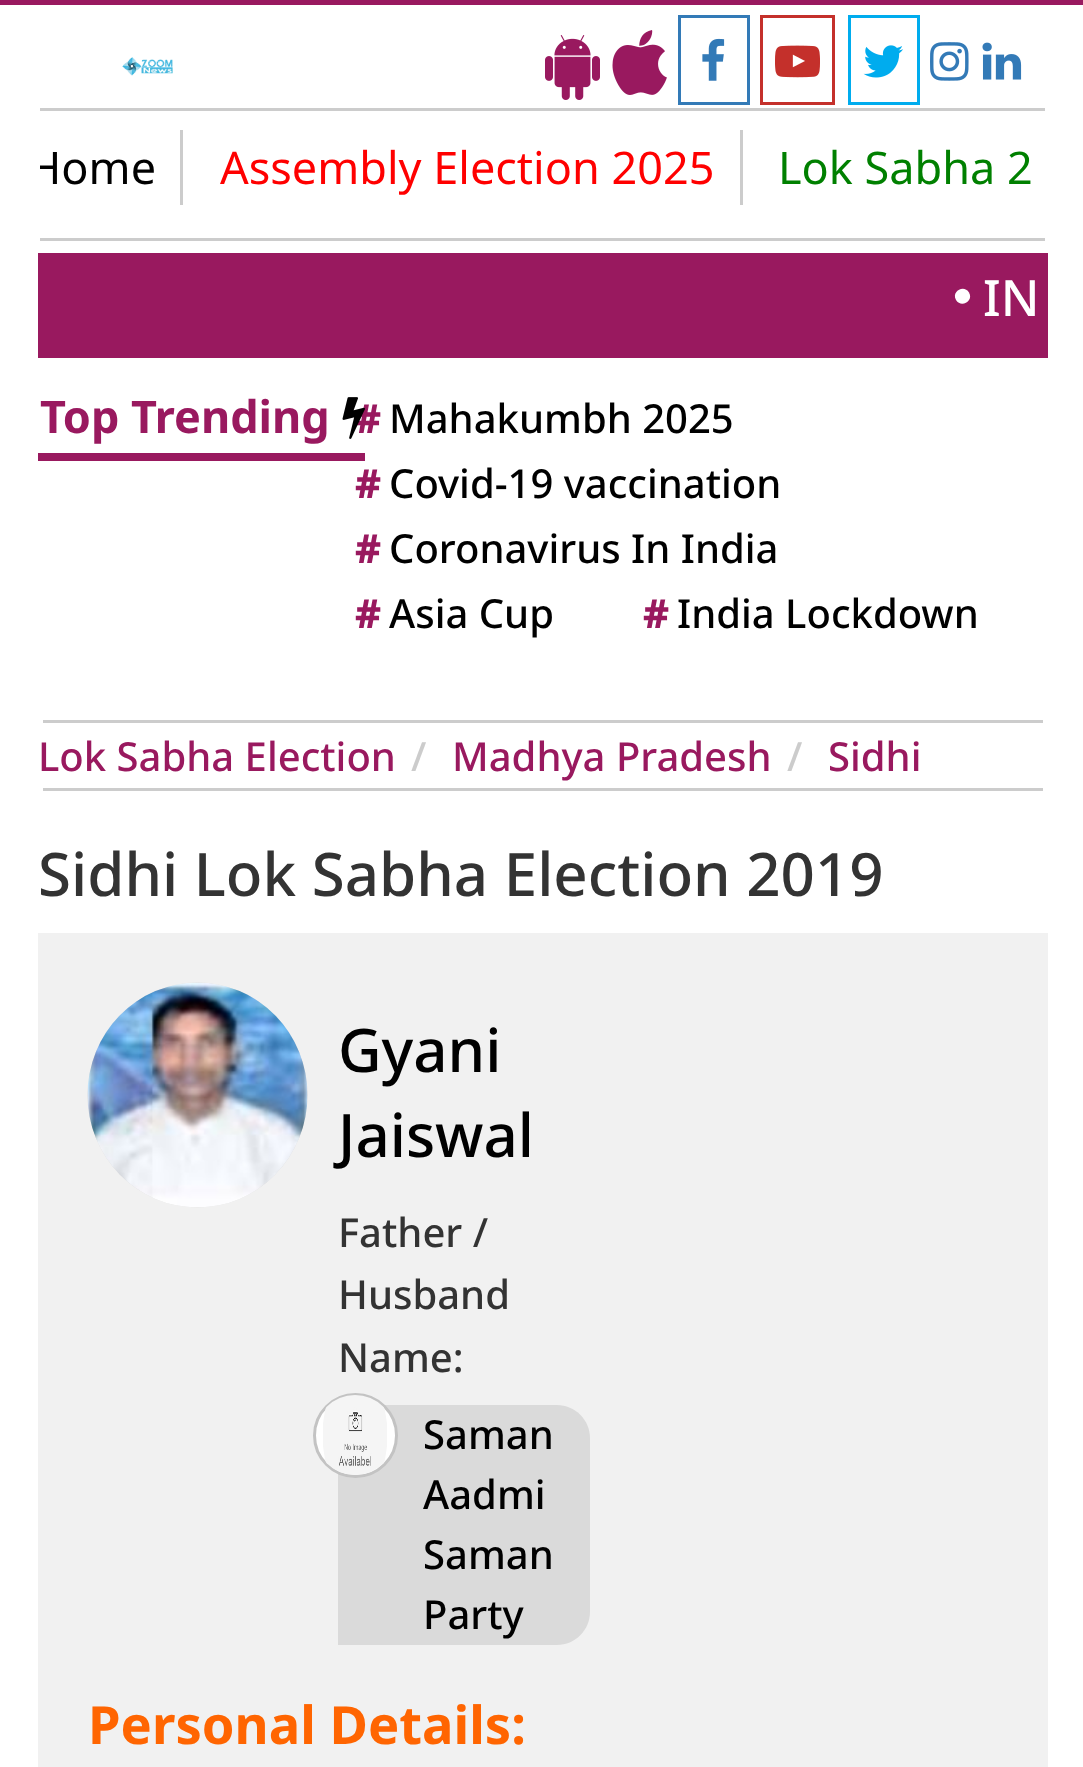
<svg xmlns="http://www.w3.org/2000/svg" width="1083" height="1767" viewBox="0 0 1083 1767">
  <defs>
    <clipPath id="clip1"><path d="M40 130h1005v75H40z"/></clipPath>
  </defs>
  <rect width="100%" height="100%" fill="#fff"/>
  <path d="M0 0h1083v5H0z" fill="#99195f"/>
  <image x="122" y="57" width="51" height="19" href="img/1.png"/>
  <image x="545" y="35" width="55" height="65" href="img/2.png"/>
  <image x="612" y="30" width="55" height="65" href="img/3.png"/>
  <path d="M679.5 16.5h69v87H679.5z" fill="none" stroke="#337ab7" stroke-width="3"/>
  <image x="702" y="38" width="23" height="43" href="img/4.png"/>
  <path d="M761.5 16.5h72v87H761.5z" fill="none" stroke="#c4302b" stroke-width="3"/>
  <image x="775" y="45" width="45" height="33" href="img/5.png"/>
  <path d="M849.5 16.5h69v87H849.5z" fill="none" stroke="#00acee" stroke-width="3"/>
  <image x="863" y="45" width="40" height="33" href="img/6.png"/>
  <image x="930" y="42" width="39" height="39" href="img/7.png"/>
  <image x="982" y="42" width="40" height="38" href="img/8.png"/>
  <path d="M40 108h1005v3H40z" fill="#ccc"/>
  <path d="M40 238h1005v3H40z" fill="#ccc"/>
  <path d="M180 130h3v75H180z" fill="#ccc"/>
  <path d="M740 130h3v75H740z" fill="#ccc"/>
  <path d="M38 253h1010v105H38z" fill="#99195f"/>
  <path d="M969 292.5C974 301 961 308.5 956 300C951 291.5 964 284 969 292.5Z" fill="#fff"/>
  <path d="M38 453h327v8H38z" fill="#99195f"/>
  <path d="M43 720h1000v3H43z" fill="#ccc"/>
  <path d="M43 788h1000v3H43z" fill="#ccc"/>
  <path d="M38 933h1010v834H38z" fill="#f1f1f1"/>
  <ellipse cx="197.5" cy="1095" rx="110" ry="112.5" fill="#ddd"/>
  <image x="87" y="982" width="221" height="226" href="img/10.png"/>
  <path d="M338 1405H557C575 1405 590 1420 590 1438V1612C590 1630 575 1645 557 1645H338Z" fill="#dadada"/>
  <circle cx="355.5" cy="1435.5" r="41" fill="#fff" stroke="#c3c3c3" stroke-width="3"/>
  <image x="323" y="1395" width="64" height="80" href="img/11.png"/>
  <g clip-path="url(#clip1)">
    <text x="28" y="184" font-family="Noto Sans" font-size="45" fill="#000">Home</text>
  </g>
  <text x="220" y="184" font-family="Noto Sans" font-size="45" fill="#f00">Assembly Election 2025</text>
  <text x="778" y="184" font-family="Noto Sans" font-size="45" fill="#008000">Lok Sabha 2</text>
  <text x="983" y="316" font-family="Noto Sans" font-size="50" font-weight="500" fill="#fff">IN</text>
  <text x="40" y="433" font-family="Noto Sans" font-size="45" font-weight="bold" fill="#99195f">Top Trending</text>
  <text x="355" y="433" font-family="Noto Sans" font-size="40" font-weight="800" fill="#99195f">#</text>
  <image x="342" y="397" width="23" height="42" href="img/9.png"/>
  <text x="389" y="433" font-family="Noto Sans" font-size="40" font-weight="500" fill="#000">Mahakumbh 2025</text>
  <text x="355" y="498" font-family="Noto Sans" font-size="40" font-weight="800" fill="#99195f">#</text>
  <text x="389" y="498" font-family="Noto Sans" font-size="40" font-weight="500" fill="#000">Covid-19 vaccination</text>
  <text x="355" y="563" font-family="Noto Sans" font-size="40" font-weight="800" fill="#99195f">#</text>
  <text x="389" y="563" font-family="Noto Sans" font-size="40" font-weight="500" fill="#000">Coronavirus In India</text>
  <text x="355" y="628" font-family="Noto Sans" font-size="40" font-weight="800" fill="#99195f">#</text>
  <text x="389" y="628" font-family="Noto Sans" font-size="40" font-weight="500" fill="#000">Asia Cup</text>
  <text x="643" y="628" font-family="Noto Sans" font-size="40" font-weight="800" fill="#99195f">#</text>
  <text x="677" y="628" font-family="Noto Sans" font-size="40" font-weight="500" fill="#000">India Lockdown</text>
  <text x="38" y="771" font-family="Noto Sans" font-size="40" font-weight="500" fill="#99195f">Lok Sabha Election</text>
  <text x="411" y="771" font-family="Noto Sans" font-size="40" font-weight="500" fill="#ccc">/</text>
  <text x="452" y="771" font-family="Noto Sans" font-size="40" font-weight="500" fill="#99195f">Madhya Pradesh</text>
  <text x="787" y="771" font-family="Noto Sans" font-size="40" font-weight="500" fill="#ccc">/</text>
  <text x="828" y="771" font-family="Noto Sans" font-size="40" font-weight="500" fill="#99195f">Sidhi</text>
  <text x="38" y="896" font-family="Noto Sans" font-size="60" font-weight="500" fill="#333">Sidhi Lok Sabha Election 2019</text>
  <g font-family="Noto Sans" font-size="60" font-weight="500" fill="#000">
    <text x="338" y="1072">Gyani</text>
    <text x="338" y="1157">Jaiswal</text>
  </g>
  <g font-family="Noto Sans" font-size="40" font-weight="500" fill="#333">
    <text x="338" y="1247">Father /</text>
    <text x="338" y="1309">Husband</text>
    <text x="338" y="1372">Name:</text>
  </g>
  <g font-family="Noto Sans" font-size="40" font-weight="500" fill="#000">
    <text x="423" y="1449">Saman</text>
    <text x="423" y="1509">Aadmi</text>
    <text x="423" y="1569">Saman</text>
    <text x="423" y="1629">Party</text>
  </g>
  <text x="88" y="1744" font-family="Noto Sans" font-size="52.5" font-weight="bold" fill="#ff6501">Personal Details:</text>
</svg>
